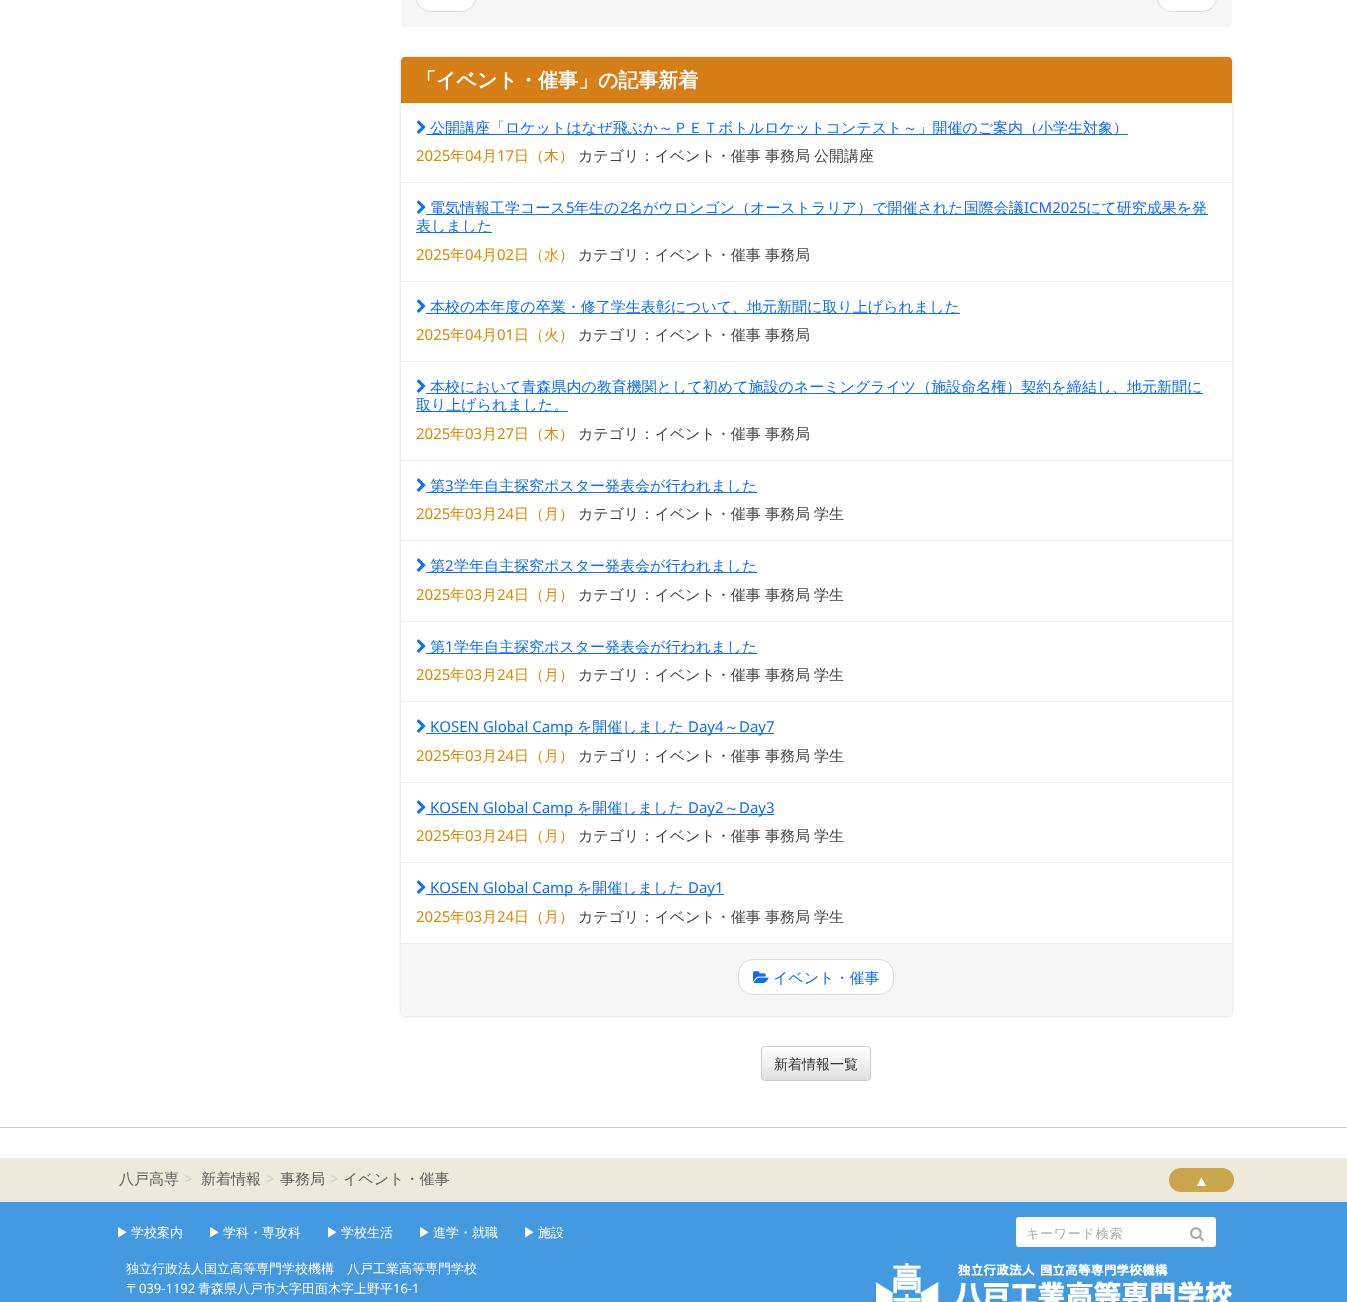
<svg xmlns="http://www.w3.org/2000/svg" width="1347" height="1302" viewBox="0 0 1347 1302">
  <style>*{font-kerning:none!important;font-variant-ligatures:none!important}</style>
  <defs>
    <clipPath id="clip1"><path d="M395 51H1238V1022H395ZM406 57H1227C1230 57 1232 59 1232 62V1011C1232 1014 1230 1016 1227 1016H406C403 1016 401 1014 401 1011V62C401 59 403 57 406 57Z" clip-rule="evenodd"/></clipPath>
    <clipPath id="clip2"><rect x="761" y="1046" width="110" height="35" rx="4"/></clipPath>
    <linearGradient id="g1" gradientUnits="userSpaceOnUse" x1="816" y1="1047" x2="816" y2="1080"><stop offset="0" stop-color="#fff"/><stop offset="1" stop-color="#e0e0e0"/></linearGradient>
  </defs>
  <rect width="100%" height="100%" fill="#fff"/>
  <path d="M401-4H1232V23C1232 25 1230 27 1228 27H405C403 27 401 25 401 23Z" fill="#f6f6f6"/>
  <rect x="416.5" y="-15.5" width="59" height="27" rx="14.5" fill="#fff" stroke="#ddd"/>
  <rect x="1157.5" y="-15.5" width="59" height="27" rx="14.5" fill="#fff" stroke="#ddd"/>
  <g clip-path="url(#clip1)">
    <rect x="401" y="57" width="831" height="959" rx="5" fill="#ccc" filter="blur(1.5px)"/>
  </g>
  <path d="M405 57H1228C1230 57 1232 59 1232 61V103H401V61C401 59 403 57 405 57Z" fill="#d67e17"/>
  <path d="M401 182h831v1H401z" fill="#eee"/>
  <image x="416" y="120" width="10" height="14" href="img/1.png"/>
  <path d="M426 134h702v1H426z" fill="#0d6efd"/>
  <path d="M401 281h831v1H401z" fill="#eee"/>
  <image x="416" y="200" width="10" height="14" href="img/1.png"/>
  <path d="M426 214h782v1H426z" fill="#0d6efd"/>
  <path d="M416 232h76v1H416z" fill="#0d6efd"/>
  <path d="M401 361h831v1H401z" fill="#eee"/>
  <image x="416" y="299" width="10" height="14" href="img/1.png"/>
  <path d="M426 313h534v1H426z" fill="#0d6efd"/>
  <path d="M401 460h831v1H401z" fill="#eee"/>
  <image x="416" y="379" width="10" height="14" href="img/1.png"/>
  <path d="M426 393h777v1H426z" fill="#0d6efd"/>
  <path d="M416 411h152v1H416z" fill="#0d6efd"/>
  <path d="M401 540h831v1H401z" fill="#eee"/>
  <image x="416" y="478" width="10" height="14" href="img/1.png"/>
  <path d="M426 492h331v1H426z" fill="#0d6efd"/>
  <path d="M401 621h831v1H401z" fill="#eee"/>
  <image x="416" y="558" width="10" height="14" href="img/1.png"/>
  <path d="M426 572h331v1H426z" fill="#0d6efd"/>
  <path d="M401 701h831v1H401z" fill="#eee"/>
  <image x="416" y="639" width="10" height="14" href="img/1.png"/>
  <path d="M426 653h331v1H426z" fill="#0d6efd"/>
  <path d="M401 782h831v1H401z" fill="#eee"/>
  <image x="416" y="719" width="10" height="14" href="img/1.png"/>
  <path d="M426 733h348v1H426z" fill="#0d6efd"/>
  <path d="M401 862h831v1H401z" fill="#eee"/>
  <image x="416" y="800" width="10" height="14" href="img/1.png"/>
  <path d="M426 814h348v1H426z" fill="#0d6efd"/>
  <path d="M401 943h831v1H401z" fill="#eee"/>
  <image x="416" y="880" width="10" height="14" href="img/1.png"/>
  <path d="M426 894h298v1H426z" fill="#0d6efd"/>
  <path d="M401 944H1232V1012C1232 1014 1230 1016 1228 1016H405C403 1016 401 1014 401 1012Z" fill="#f6f6f6"/>
  <rect x="738.5" y="959.5" width="155" height="35" rx="14.5" fill="#fff" stroke="#ddd"/>
  <image x="753" y="971" width="16" height="12" href="img/2.png"/>
  <g clip-path="url(#clip2)">
    <path d="M761 1047h110v33H761z" fill="url(#g1)"/>
  </g>
  <rect x="761.5" y="1046.5" width="109" height="34" rx="3.5" fill="none" stroke="#ccc"/>
  <path d="M0 1127h1347v1H0z" fill="#d0d0d0"/>
  <path d="M0 1158h1347v44H0z" fill="#ede9dc"/>
  <rect x="1169" y="1168" width="65" height="24" rx="12" fill="#caa64d"/>
  <path d="M0 1202h1347v100H0z" fill="#449ae0"/>
  <rect x="1016" y="1217" width="200" height="30" rx="3" fill="#fff"/>
  <image x="1190" y="1227" width="14" height="15" href="img/3.png"/>
  <image x="876" y="1263" width="356" height="39" href="img/4.png"/>
  <text x="416" y="87" font-family="WenQuanYi Zen Hei" font-size="20" font-weight="bold" fill="#fff">「イベント・催事」の記事新着</text>
  <text x="430" y="133" font-family="WenQuanYi Zen Hei" font-size="15" font-weight="500" fill="#0d6efd">公開講座「ロケットはなぜ飛ぶか～ＰＥＴボトルロケットコンテスト～」開催のご案内（小学生対象）</text>
  <text x="416" y="161" font-family="Noto Sans" font-size="15" fill="#d80">2025</text>
  <text x="450" y="161" font-family="WenQuanYi Zen Hei" font-size="15" font-weight="500" fill="#d80">年</text>
  <text x="465" y="161" font-family="Noto Sans" font-size="15" fill="#d80">04</text>
  <text x="482" y="161" font-family="WenQuanYi Zen Hei" font-size="15" font-weight="500" fill="#d80">月</text>
  <text x="497" y="161" font-family="Noto Sans" font-size="15" fill="#d80">17</text>
  <text x="514" y="161" font-family="WenQuanYi Zen Hei" font-size="15" font-weight="500" fill="#d80">日（木）</text>
  <g font-family="WenQuanYi Zen Hei" font-size="15" font-weight="500" fill="#444">
    <text x="578" y="161">カテゴリ：イベント・催事</text>
    <text x="765" y="161">事務局</text>
    <text x="814" y="161">公開講座</text>
  </g>
  <text x="430" y="213" font-family="WenQuanYi Zen Hei" font-size="15" font-weight="500" fill="#0d6efd">電気情報工学コース</text>
  <text x="566" y="213" font-family="Noto Sans" font-size="15" fill="#0d6efd">5</text>
  <text x="574" y="213" font-family="WenQuanYi Zen Hei" font-size="15" font-weight="500" fill="#0d6efd">年生の</text>
  <text x="620" y="213" font-family="Noto Sans" font-size="15" fill="#0d6efd">2</text>
  <text x="628" y="213" font-family="WenQuanYi Zen Hei" font-size="15" font-weight="500" fill="#0d6efd">名がウロンゴン（オーストラリア）で開催された国際会議</text>
  <text x="1024" y="213" font-family="Noto Sans" font-size="15" fill="#0d6efd">ICM2025</text>
  <g font-family="WenQuanYi Zen Hei" font-size="15" font-weight="500" fill="#0d6efd">
    <text x="1086" y="213">にて研究成果を発</text>
    <text x="416" y="231">表しました</text>
  </g>
  <text x="416" y="260" font-family="Noto Sans" font-size="15" fill="#d80">2025</text>
  <text x="450" y="260" font-family="WenQuanYi Zen Hei" font-size="15" font-weight="500" fill="#d80">年</text>
  <text x="465" y="260" font-family="Noto Sans" font-size="15" fill="#d80">04</text>
  <text x="482" y="260" font-family="WenQuanYi Zen Hei" font-size="15" font-weight="500" fill="#d80">月</text>
  <text x="497" y="260" font-family="Noto Sans" font-size="15" fill="#d80">02</text>
  <text x="514" y="260" font-family="WenQuanYi Zen Hei" font-size="15" font-weight="500" fill="#d80">日（水）</text>
  <g font-family="WenQuanYi Zen Hei" font-size="15" font-weight="500" fill="#444">
    <text x="578" y="260">カテゴリ：イベント・催事</text>
    <text x="765" y="260">事務局</text>
  </g>
  <text x="430" y="312" font-family="WenQuanYi Zen Hei" font-size="15" font-weight="500" fill="#0d6efd">本校の本年度の卒業・修了学生表彰について、地元新聞に取り上げられました</text>
  <text x="416" y="340" font-family="Noto Sans" font-size="15" fill="#d80">2025</text>
  <text x="450" y="340" font-family="WenQuanYi Zen Hei" font-size="15" font-weight="500" fill="#d80">年</text>
  <text x="465" y="340" font-family="Noto Sans" font-size="15" fill="#d80">04</text>
  <text x="482" y="340" font-family="WenQuanYi Zen Hei" font-size="15" font-weight="500" fill="#d80">月</text>
  <text x="497" y="340" font-family="Noto Sans" font-size="15" fill="#d80">01</text>
  <text x="514" y="340" font-family="WenQuanYi Zen Hei" font-size="15" font-weight="500" fill="#d80">日（火）</text>
  <g font-family="WenQuanYi Zen Hei" font-size="15" font-weight="500" fill="#444">
    <text x="578" y="340">カテゴリ：イベント・催事</text>
    <text x="765" y="340">事務局</text>
  </g>
  <g font-family="WenQuanYi Zen Hei" font-size="15" font-weight="500" fill="#0d6efd">
    <text x="430" y="392">本校において青森県内の教育機関として初めて施設のネーミングライツ（施設命名権）契約を締結し、地元新聞に</text>
    <text x="416" y="410">取り上げられました。</text>
  </g>
  <text x="416" y="439" font-family="Noto Sans" font-size="15" fill="#d80">2025</text>
  <text x="450" y="439" font-family="WenQuanYi Zen Hei" font-size="15" font-weight="500" fill="#d80">年</text>
  <text x="465" y="439" font-family="Noto Sans" font-size="15" fill="#d80">03</text>
  <text x="482" y="439" font-family="WenQuanYi Zen Hei" font-size="15" font-weight="500" fill="#d80">月</text>
  <text x="497" y="439" font-family="Noto Sans" font-size="15" fill="#d80">27</text>
  <text x="514" y="439" font-family="WenQuanYi Zen Hei" font-size="15" font-weight="500" fill="#d80">日（木）</text>
  <g font-family="WenQuanYi Zen Hei" font-size="15" font-weight="500" fill="#444">
    <text x="578" y="439">カテゴリ：イベント・催事</text>
    <text x="765" y="439">事務局</text>
  </g>
  <text x="430" y="491" font-family="WenQuanYi Zen Hei" font-size="15" font-weight="500" fill="#0d6efd">第</text>
  <text x="445" y="491" font-family="Noto Sans" font-size="15" fill="#0d6efd">3</text>
  <text x="454" y="491" font-family="WenQuanYi Zen Hei" font-size="15" font-weight="500" fill="#0d6efd">学年自主探究ポスター発表会が行われました</text>
  <text x="416" y="519" font-family="Noto Sans" font-size="15" fill="#d80">2025</text>
  <text x="450" y="519" font-family="WenQuanYi Zen Hei" font-size="15" font-weight="500" fill="#d80">年</text>
  <text x="465" y="519" font-family="Noto Sans" font-size="15" fill="#d80">03</text>
  <text x="482" y="519" font-family="WenQuanYi Zen Hei" font-size="15" font-weight="500" fill="#d80">月</text>
  <text x="497" y="519" font-family="Noto Sans" font-size="15" fill="#d80">24</text>
  <text x="514" y="519" font-family="WenQuanYi Zen Hei" font-size="15" font-weight="500" fill="#d80">日（月）</text>
  <g font-family="WenQuanYi Zen Hei" font-size="15" font-weight="500" fill="#444">
    <text x="578" y="519">カテゴリ：イベント・催事</text>
    <text x="765" y="519">事務局</text>
    <text x="814" y="519">学生</text>
  </g>
  <text x="430" y="571" font-family="WenQuanYi Zen Hei" font-size="15" font-weight="500" fill="#0d6efd">第</text>
  <text x="445" y="571" font-family="Noto Sans" font-size="15" fill="#0d6efd">2</text>
  <text x="454" y="571" font-family="WenQuanYi Zen Hei" font-size="15" font-weight="500" fill="#0d6efd">学年自主探究ポスター発表会が行われました</text>
  <text x="416" y="600" font-family="Noto Sans" font-size="15" fill="#d80">2025</text>
  <text x="450" y="600" font-family="WenQuanYi Zen Hei" font-size="15" font-weight="500" fill="#d80">年</text>
  <text x="465" y="600" font-family="Noto Sans" font-size="15" fill="#d80">03</text>
  <text x="482" y="600" font-family="WenQuanYi Zen Hei" font-size="15" font-weight="500" fill="#d80">月</text>
  <text x="497" y="600" font-family="Noto Sans" font-size="15" fill="#d80">24</text>
  <text x="514" y="600" font-family="WenQuanYi Zen Hei" font-size="15" font-weight="500" fill="#d80">日（月）</text>
  <g font-family="WenQuanYi Zen Hei" font-size="15" font-weight="500" fill="#444">
    <text x="578" y="600">カテゴリ：イベント・催事</text>
    <text x="765" y="600">事務局</text>
    <text x="814" y="600">学生</text>
  </g>
  <text x="430" y="652" font-family="WenQuanYi Zen Hei" font-size="15" font-weight="500" fill="#0d6efd">第</text>
  <text x="445" y="652" font-family="Noto Sans" font-size="15" fill="#0d6efd">1</text>
  <text x="454" y="652" font-family="WenQuanYi Zen Hei" font-size="15" font-weight="500" fill="#0d6efd">学年自主探究ポスター発表会が行われました</text>
  <text x="416" y="680" font-family="Noto Sans" font-size="15" fill="#d80">2025</text>
  <text x="450" y="680" font-family="WenQuanYi Zen Hei" font-size="15" font-weight="500" fill="#d80">年</text>
  <text x="465" y="680" font-family="Noto Sans" font-size="15" fill="#d80">03</text>
  <text x="482" y="680" font-family="WenQuanYi Zen Hei" font-size="15" font-weight="500" fill="#d80">月</text>
  <text x="497" y="680" font-family="Noto Sans" font-size="15" fill="#d80">24</text>
  <text x="514" y="680" font-family="WenQuanYi Zen Hei" font-size="15" font-weight="500" fill="#d80">日（月）</text>
  <g font-family="WenQuanYi Zen Hei" font-size="15" font-weight="500" fill="#444">
    <text x="578" y="680">カテゴリ：イベント・催事</text>
    <text x="765" y="680">事務局</text>
    <text x="814" y="680">学生</text>
  </g>
  <text x="430" y="732" font-family="Noto Sans" font-size="15" fill="#0d6efd">KOSEN Global Camp</text>
  <text x="577" y="732" font-family="WenQuanYi Zen Hei" font-size="15" font-weight="500" fill="#0d6efd">を開催しました</text>
  <text x="688" y="732" font-family="Noto Sans" font-size="15" fill="#0d6efd">Day4</text>
  <text x="724" y="732" font-family="WenQuanYi Zen Hei" font-size="15" font-weight="500" fill="#0d6efd">～</text>
  <text x="739" y="732" font-family="Noto Sans" font-size="15" fill="#0d6efd">Day7</text>
  <text x="416" y="761" font-family="Noto Sans" font-size="15" fill="#d80">2025</text>
  <text x="450" y="761" font-family="WenQuanYi Zen Hei" font-size="15" font-weight="500" fill="#d80">年</text>
  <text x="465" y="761" font-family="Noto Sans" font-size="15" fill="#d80">03</text>
  <text x="482" y="761" font-family="WenQuanYi Zen Hei" font-size="15" font-weight="500" fill="#d80">月</text>
  <text x="497" y="761" font-family="Noto Sans" font-size="15" fill="#d80">24</text>
  <text x="514" y="761" font-family="WenQuanYi Zen Hei" font-size="15" font-weight="500" fill="#d80">日（月）</text>
  <g font-family="WenQuanYi Zen Hei" font-size="15" font-weight="500" fill="#444">
    <text x="578" y="761">カテゴリ：イベント・催事</text>
    <text x="765" y="761">事務局</text>
    <text x="814" y="761">学生</text>
  </g>
  <text x="430" y="813" font-family="Noto Sans" font-size="15" fill="#0d6efd">KOSEN Global Camp</text>
  <text x="577" y="813" font-family="WenQuanYi Zen Hei" font-size="15" font-weight="500" fill="#0d6efd">を開催しました</text>
  <text x="688" y="813" font-family="Noto Sans" font-size="15" fill="#0d6efd">Day2</text>
  <text x="724" y="813" font-family="WenQuanYi Zen Hei" font-size="15" font-weight="500" fill="#0d6efd">～</text>
  <text x="739" y="813" font-family="Noto Sans" font-size="15" fill="#0d6efd">Day3</text>
  <text x="416" y="841" font-family="Noto Sans" font-size="15" fill="#d80">2025</text>
  <text x="450" y="841" font-family="WenQuanYi Zen Hei" font-size="15" font-weight="500" fill="#d80">年</text>
  <text x="465" y="841" font-family="Noto Sans" font-size="15" fill="#d80">03</text>
  <text x="482" y="841" font-family="WenQuanYi Zen Hei" font-size="15" font-weight="500" fill="#d80">月</text>
  <text x="497" y="841" font-family="Noto Sans" font-size="15" fill="#d80">24</text>
  <text x="514" y="841" font-family="WenQuanYi Zen Hei" font-size="15" font-weight="500" fill="#d80">日（月）</text>
  <g font-family="WenQuanYi Zen Hei" font-size="15" font-weight="500" fill="#444">
    <text x="578" y="841">カテゴリ：イベント・催事</text>
    <text x="765" y="841">事務局</text>
    <text x="814" y="841">学生</text>
  </g>
  <text x="430" y="893" font-family="Noto Sans" font-size="15" fill="#0d6efd">KOSEN Global Camp</text>
  <text x="577" y="893" font-family="WenQuanYi Zen Hei" font-size="15" font-weight="500" fill="#0d6efd">を開催しました</text>
  <text x="688" y="893" font-family="Noto Sans" font-size="15" fill="#0d6efd">Day1</text>
  <text x="416" y="922" font-family="Noto Sans" font-size="15" fill="#d80">2025</text>
  <text x="450" y="922" font-family="WenQuanYi Zen Hei" font-size="15" font-weight="500" fill="#d80">年</text>
  <text x="465" y="922" font-family="Noto Sans" font-size="15" fill="#d80">03</text>
  <text x="482" y="922" font-family="WenQuanYi Zen Hei" font-size="15" font-weight="500" fill="#d80">月</text>
  <text x="497" y="922" font-family="Noto Sans" font-size="15" fill="#d80">24</text>
  <text x="514" y="922" font-family="WenQuanYi Zen Hei" font-size="15" font-weight="500" fill="#d80">日（月）</text>
  <g font-family="WenQuanYi Zen Hei" font-size="15" font-weight="500" fill="#444">
    <text x="578" y="922">カテゴリ：イベント・催事</text>
    <text x="765" y="922">事務局</text>
    <text x="814" y="922">学生</text>
  </g>
  <text x="773" y="983" font-family="WenQuanYi Zen Hei" font-size="15" font-weight="500" fill="#0d6efd">イベント・催事</text>
  <text x="774" y="1069" font-family="WenQuanYi Zen Hei" font-size="14" font-weight="500" fill="#333">新着情報一覧</text>
  <text x="119" y="1184" font-family="WenQuanYi Zen Hei" font-size="15" font-weight="500" fill="#606060">八戸高専</text>
  <text x="184" y="1184" font-family="Noto Sans" font-size="15" fill="#ccc">&gt;</text>
  <text x="201" y="1184" font-family="WenQuanYi Zen Hei" font-size="15" font-weight="500" fill="#606060">新着情報</text>
  <text x="266" y="1184" font-family="Noto Sans" font-size="15" fill="#ccc">&gt;</text>
  <text x="280" y="1184" font-family="WenQuanYi Zen Hei" font-size="15" font-weight="500" fill="#606060">事務局</text>
  <text x="330" y="1184" font-family="Noto Sans" font-size="15" fill="#ccc">&gt;</text>
  <text x="343" y="1184" font-family="WenQuanYi Zen Hei" font-size="15" font-weight="500" fill="#606060">イベント・催事</text>
  <text x="1194" y="1186" font-family="Liberation Sans" font-size="15" fill="#fff">▲</text>
  <g font-family="WenQuanYi Zen Hei" font-size="13" font-weight="500" fill="#fff">
    <text x="116" y="1237">▶︎</text>
    <text x="131" y="1237">学校案内</text>
    <text x="208" y="1237">▶︎</text>
    <text x="223" y="1237">学科・専攻科</text>
    <text x="326" y="1237">▶︎</text>
    <text x="341" y="1237">学校生活</text>
    <text x="418" y="1237">▶︎</text>
    <text x="433" y="1237">進学・就職</text>
    <text x="523" y="1237">▶︎</text>
    <text x="538" y="1237">施設</text>
    <text x="126" y="1273">独立行政法人国立高等専門学校機構</text>
    <text x="347" y="1273">八戸工業高等専門学校</text>
    <text x="126" y="1293">〒</text>
  </g>
  <text x="139" y="1293" font-family="Noto Sans" font-size="13" fill="#fff">039-1192</text>
  <text x="198" y="1293" font-family="WenQuanYi Zen Hei" font-size="13" font-weight="500" fill="#fff">青森県八戸市大字田面木字上野平</text>
  <text x="393" y="1293" font-family="Noto Sans" font-size="13" fill="#fff">16-1</text>
  <text x="1026" y="1238" font-family="WenQuanYi Zen Hei" font-size="13" font-weight="500" letter-spacing="0.75" fill="#aaa">キーワード検索</text>
</svg>
